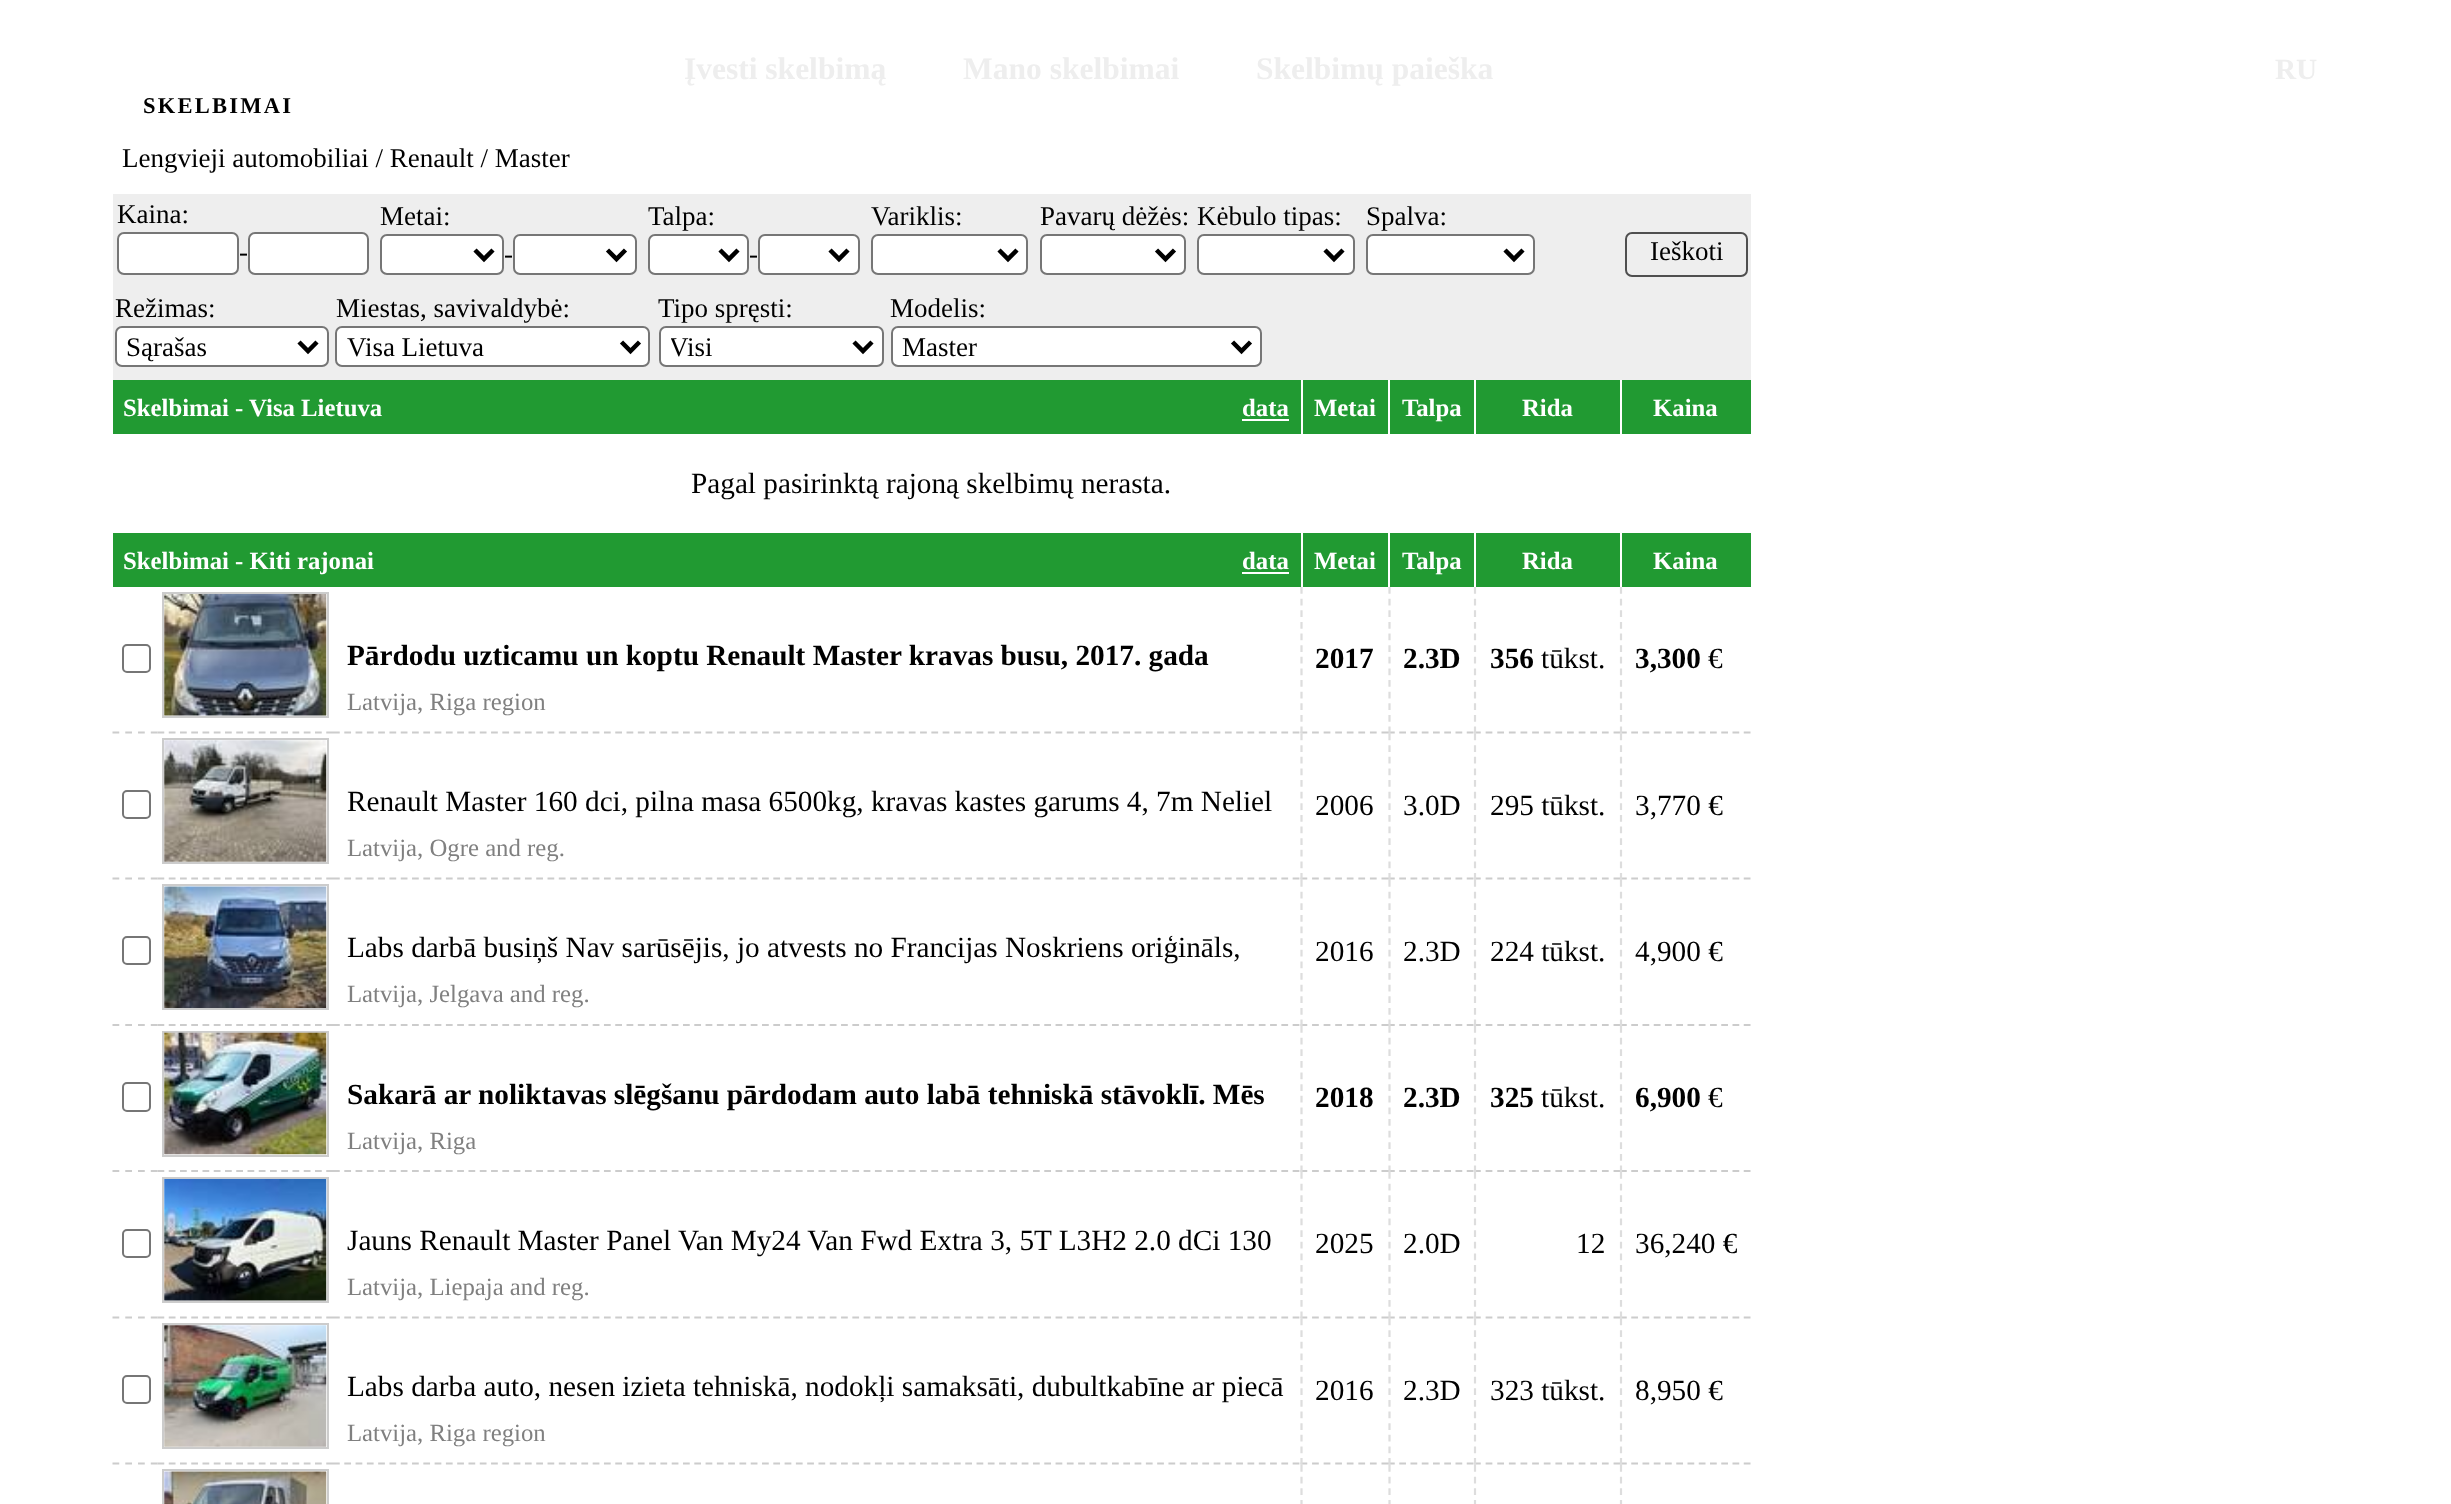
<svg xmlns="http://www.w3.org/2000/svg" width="2451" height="1504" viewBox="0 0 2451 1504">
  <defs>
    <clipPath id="clip1"><path d="M671 329h175v36H671z"/></clipPath>
  </defs>
  <rect width="100%" height="100%" fill="#fff"/>
  <path d="M113 194h1638v186H113z" fill="#eee"/>
  <rect x="118" y="233" width="120" height="41" rx="6" fill="#fff" stroke="#767676" stroke-width="2"/>
  <rect x="249" y="233" width="119" height="41" rx="6" fill="#fff" stroke="#767676" stroke-width="2"/>
  <rect x="381" y="235" width="122" height="39" rx="6" fill="#fff" stroke="#767676" stroke-width="2"/>
  <path d="M475 250L484 259L493 250" fill="none" stroke="#000" stroke-width="4.5"/>
  <rect x="514" y="235" width="122" height="39" rx="6" fill="#fff" stroke="#767676" stroke-width="2"/>
  <path d="M607.5 250L616.5 259L625.5 250" fill="none" stroke="#000" stroke-width="4.5"/>
  <rect x="649" y="235" width="99" height="39" rx="6" fill="#fff" stroke="#767676" stroke-width="2"/>
  <path d="M720 250L729 259L738 250" fill="none" stroke="#000" stroke-width="4.5"/>
  <rect x="759" y="235" width="100" height="39" rx="6" fill="#fff" stroke="#767676" stroke-width="2"/>
  <path d="M830 250L839 259L848 250" fill="none" stroke="#000" stroke-width="4.5"/>
  <rect x="872" y="235" width="155" height="39" rx="6" fill="#fff" stroke="#767676" stroke-width="2"/>
  <path d="M999 250L1008 259L1017 250" fill="none" stroke="#000" stroke-width="4.5"/>
  <rect x="1041" y="235" width="144" height="39" rx="6" fill="#fff" stroke="#767676" stroke-width="2"/>
  <path d="M1156.5 250L1165.5 259L1174.5 250" fill="none" stroke="#000" stroke-width="4.5"/>
  <rect x="1198" y="235" width="156" height="39" rx="6" fill="#fff" stroke="#767676" stroke-width="2"/>
  <path d="M1325 250L1334 259L1343 250" fill="none" stroke="#000" stroke-width="4.5"/>
  <rect x="1367" y="235" width="167" height="39" rx="6" fill="#fff" stroke="#767676" stroke-width="2"/>
  <path d="M1505 250L1514 259L1523 250" fill="none" stroke="#000" stroke-width="4.5"/>
  <rect x="1626" y="233" width="121" height="43" rx="6" fill="none" stroke="#4f4f4f" stroke-width="2"/>
  <rect x="116" y="327" width="212" height="39" rx="6" fill="#fff" stroke="#767676" stroke-width="2"/>
  <path d="M299 342L308 351L317 342" fill="none" stroke="#000" stroke-width="4.5"/>
  <rect x="336" y="327" width="313" height="39" rx="6" fill="#fff" stroke="#767676" stroke-width="2"/>
  <path d="M621.5 342L630.5 351L639.5 342" fill="none" stroke="#000" stroke-width="4.5"/>
  <rect x="660" y="327" width="223" height="39" rx="6" fill="#fff" stroke="#767676" stroke-width="2"/>
  <path d="M854 342L863 351L872 342" fill="none" stroke="#000" stroke-width="4.5"/>
  <rect x="892" y="327" width="369" height="39" rx="6" fill="#fff" stroke="#767676" stroke-width="2"/>
  <path d="M1232.5 342L1241.5 351L1250.5 342" fill="none" stroke="#000" stroke-width="4.5"/>
  <path d="M113 380h1188v54H113z" fill="#219a32"/>
  <path d="M1242 419h47v2H1242z" fill="#fff"/>
  <path d="M1303 380h85v54H1303z" fill="#219a32"/>
  <path d="M1390 380h84v54H1390z" fill="#219a32"/>
  <path d="M1476 380h144v54H1476z" fill="#219a32"/>
  <path d="M1622 380h129v54H1622z" fill="#219a32"/>
  <path d="M113 533h1188v54H113z" fill="#219a32"/>
  <path d="M1242 572h47v2H1242z" fill="#fff"/>
  <path d="M1303 533h85v54H1303z" fill="#219a32"/>
  <path d="M1390 533h84v54H1390z" fill="#219a32"/>
  <path d="M1476 533h144v54H1476z" fill="#219a32"/>
  <path d="M1622 533h129v54H1622z" fill="#219a32"/>
  <path d="M112.5 732.5H157.5" fill="none" stroke="#ccc" stroke-width="2.2" stroke-dasharray="6.75 6.01"/>
  <rect x="123" y="645" width="27" height="27" rx="4" fill="none" stroke="#767676" stroke-width="2"/>
  <path d="M157.5 732.5H333" fill="none" stroke="#ccc" stroke-width="2.2" stroke-dasharray="6.75 4.5"/>
  <path d="M163 593h165v124H163z" fill="none" stroke="#ccc" stroke-width="2"/>
  <image x="164" y="594" width="163" height="122" href="img/1.png"/>
  <path d="M333 732.5H1300.5" fill="none" stroke="#ccc" stroke-width="2.2" stroke-dasharray="6.75 4.54"/>
  <path d="M1300.5 732.5H1388" fill="none" stroke="#ccc" stroke-width="2.2" stroke-dasharray="6.75 4.82"/>
  <path d="M1301.5 587V733.5" fill="none" stroke="#ddd" stroke-width="2.2" stroke-dasharray="6.75 4.88"/>
  <path d="M1388 732.5H1474" fill="none" stroke="#ccc" stroke-width="2.2" stroke-dasharray="6.75 4.5"/>
  <path d="M1389.5 587V733.5" fill="none" stroke="#ddd" stroke-width="2.2" stroke-dasharray="6.75 4.88"/>
  <path d="M1474 732.5H1620" fill="none" stroke="#ccc" stroke-width="2.2" stroke-dasharray="6.75 4.88"/>
  <path d="M1475 587V733.5" fill="none" stroke="#ddd" stroke-width="2.2" stroke-dasharray="6.75 4.88"/>
  <path d="M1620 732.5H1750.5" fill="none" stroke="#ccc" stroke-width="2.2" stroke-dasharray="6.75 4.5"/>
  <path d="M1621 587V733.5" fill="none" stroke="#ddd" stroke-width="2.2" stroke-dasharray="6.75 4.88"/>
  <path d="M112.5 878.5H157.5" fill="none" stroke="#ccc" stroke-width="2.2" stroke-dasharray="6.75 6.01"/>
  <rect x="123" y="791" width="27" height="27" rx="4" fill="none" stroke="#767676" stroke-width="2"/>
  <path d="M157.5 878.5H333" fill="none" stroke="#ccc" stroke-width="2.2" stroke-dasharray="6.75 4.5"/>
  <path d="M163 739h165v124H163z" fill="none" stroke="#ccc" stroke-width="2"/>
  <image x="164" y="740" width="163" height="122" href="img/2.png"/>
  <path d="M333 878.5H1300.5" fill="none" stroke="#ccc" stroke-width="2.2" stroke-dasharray="6.75 4.54"/>
  <path d="M1300.5 878.5H1388" fill="none" stroke="#ccc" stroke-width="2.2" stroke-dasharray="6.75 4.82"/>
  <path d="M1301.5 733.5V880" fill="none" stroke="#ddd" stroke-width="2.2" stroke-dasharray="6.75 4.88"/>
  <path d="M1388 878.5H1474" fill="none" stroke="#ccc" stroke-width="2.2" stroke-dasharray="6.75 4.5"/>
  <path d="M1389.5 733.5V880" fill="none" stroke="#ddd" stroke-width="2.2" stroke-dasharray="6.75 4.88"/>
  <path d="M1474 878.5H1620" fill="none" stroke="#ccc" stroke-width="2.2" stroke-dasharray="6.75 4.88"/>
  <path d="M1475 733.5V880" fill="none" stroke="#ddd" stroke-width="2.2" stroke-dasharray="6.75 4.88"/>
  <path d="M1620 878.5H1750.5" fill="none" stroke="#ccc" stroke-width="2.2" stroke-dasharray="6.75 4.5"/>
  <path d="M1621 733.5V880" fill="none" stroke="#ddd" stroke-width="2.2" stroke-dasharray="6.75 4.88"/>
  <path d="M112.5 1025H157.5" fill="none" stroke="#ccc" stroke-width="2.2" stroke-dasharray="6.75 6.01"/>
  <rect x="123" y="937" width="27" height="27" rx="4" fill="none" stroke="#767676" stroke-width="2"/>
  <path d="M157.5 1025H333" fill="none" stroke="#ccc" stroke-width="2.2" stroke-dasharray="6.75 4.5"/>
  <path d="M163 885h165v124H163z" fill="none" stroke="#ccc" stroke-width="2"/>
  <image x="164" y="886" width="163" height="122" href="img/3.png"/>
  <path d="M333 1025H1300.5" fill="none" stroke="#ccc" stroke-width="2.2" stroke-dasharray="6.75 4.54"/>
  <path d="M1300.5 1025H1388" fill="none" stroke="#ccc" stroke-width="2.2" stroke-dasharray="6.75 4.82"/>
  <path d="M1301.5 880V1026" fill="none" stroke="#ddd" stroke-width="2.2" stroke-dasharray="6.75 4.88"/>
  <path d="M1388 1025H1474" fill="none" stroke="#ccc" stroke-width="2.2" stroke-dasharray="6.75 4.5"/>
  <path d="M1389.5 880V1026" fill="none" stroke="#ddd" stroke-width="2.2" stroke-dasharray="6.75 4.88"/>
  <path d="M1474 1025H1620" fill="none" stroke="#ccc" stroke-width="2.2" stroke-dasharray="6.75 4.88"/>
  <path d="M1475 880V1026" fill="none" stroke="#ddd" stroke-width="2.2" stroke-dasharray="6.75 4.88"/>
  <path d="M1620 1025H1750.5" fill="none" stroke="#ccc" stroke-width="2.2" stroke-dasharray="6.75 4.5"/>
  <path d="M1621 880V1026" fill="none" stroke="#ddd" stroke-width="2.2" stroke-dasharray="6.75 4.88"/>
  <path d="M112.5 1171H157.5" fill="none" stroke="#ccc" stroke-width="2.2" stroke-dasharray="6.75 6.01"/>
  <rect x="123" y="1083" width="27" height="28" rx="4" fill="none" stroke="#767676" stroke-width="2"/>
  <path d="M157.5 1171H333" fill="none" stroke="#ccc" stroke-width="2.2" stroke-dasharray="6.75 4.5"/>
  <path d="M163 1032h165v124H163z" fill="none" stroke="#ccc" stroke-width="2"/>
  <image x="164" y="1032" width="163" height="123" href="img/4.png"/>
  <path d="M333 1171H1300.5" fill="none" stroke="#ccc" stroke-width="2.2" stroke-dasharray="6.75 4.54"/>
  <path d="M1300.5 1171H1388" fill="none" stroke="#ccc" stroke-width="2.2" stroke-dasharray="6.75 4.82"/>
  <path d="M1301.5 1026V1172" fill="none" stroke="#ddd" stroke-width="2.2" stroke-dasharray="6.75 4.88"/>
  <path d="M1388 1171H1474" fill="none" stroke="#ccc" stroke-width="2.2" stroke-dasharray="6.75 4.5"/>
  <path d="M1389.5 1026V1172" fill="none" stroke="#ddd" stroke-width="2.2" stroke-dasharray="6.75 4.88"/>
  <path d="M1474 1171H1620" fill="none" stroke="#ccc" stroke-width="2.2" stroke-dasharray="6.75 4.88"/>
  <path d="M1475 1026V1172" fill="none" stroke="#ddd" stroke-width="2.2" stroke-dasharray="6.75 4.88"/>
  <path d="M1620 1171H1750.5" fill="none" stroke="#ccc" stroke-width="2.2" stroke-dasharray="6.75 4.5"/>
  <path d="M1621 1026V1172" fill="none" stroke="#ddd" stroke-width="2.2" stroke-dasharray="6.75 4.88"/>
  <path d="M112.5 1317.5H157.5" fill="none" stroke="#ccc" stroke-width="2.2" stroke-dasharray="6.75 6.01"/>
  <rect x="123" y="1230" width="27" height="27" rx="4" fill="none" stroke="#767676" stroke-width="2"/>
  <path d="M157.5 1317.5H333" fill="none" stroke="#ccc" stroke-width="2.2" stroke-dasharray="6.75 4.5"/>
  <path d="M163 1178h165v124H163z" fill="none" stroke="#ccc" stroke-width="2"/>
  <image x="164" y="1179" width="163" height="122" href="img/5.png"/>
  <path d="M333 1317.5H1300.5" fill="none" stroke="#ccc" stroke-width="2.2" stroke-dasharray="6.75 4.54"/>
  <path d="M1300.5 1317.5H1388" fill="none" stroke="#ccc" stroke-width="2.2" stroke-dasharray="6.75 4.82"/>
  <path d="M1301.5 1172V1318.5" fill="none" stroke="#ddd" stroke-width="2.2" stroke-dasharray="6.75 4.88"/>
  <path d="M1388 1317.5H1474" fill="none" stroke="#ccc" stroke-width="2.2" stroke-dasharray="6.75 4.5"/>
  <path d="M1389.5 1172V1318.5" fill="none" stroke="#ddd" stroke-width="2.2" stroke-dasharray="6.75 4.88"/>
  <path d="M1474 1317.5H1620" fill="none" stroke="#ccc" stroke-width="2.2" stroke-dasharray="6.75 4.88"/>
  <path d="M1475 1172V1318.5" fill="none" stroke="#ddd" stroke-width="2.2" stroke-dasharray="6.75 4.88"/>
  <path d="M1620 1317.5H1750.5" fill="none" stroke="#ccc" stroke-width="2.2" stroke-dasharray="6.75 4.5"/>
  <path d="M1621 1172V1318.5" fill="none" stroke="#ddd" stroke-width="2.2" stroke-dasharray="6.75 4.88"/>
  <path d="M112.5 1463.5H157.5" fill="none" stroke="#ccc" stroke-width="2.2" stroke-dasharray="6.75 6.01"/>
  <rect x="123" y="1376" width="27" height="27" rx="4" fill="none" stroke="#767676" stroke-width="2"/>
  <path d="M157.5 1463.5H333" fill="none" stroke="#ccc" stroke-width="2.2" stroke-dasharray="6.75 4.5"/>
  <path d="M163 1324h165v124H163z" fill="none" stroke="#ccc" stroke-width="2"/>
  <image x="164" y="1325" width="163" height="122" href="img/6.png"/>
  <path d="M333 1463.5H1300.5" fill="none" stroke="#ccc" stroke-width="2.2" stroke-dasharray="6.75 4.54"/>
  <path d="M1300.5 1463.5H1388" fill="none" stroke="#ccc" stroke-width="2.2" stroke-dasharray="6.75 4.82"/>
  <path d="M1301.5 1318.5V1465" fill="none" stroke="#ddd" stroke-width="2.2" stroke-dasharray="6.75 4.88"/>
  <path d="M1388 1463.5H1474" fill="none" stroke="#ccc" stroke-width="2.2" stroke-dasharray="6.75 4.5"/>
  <path d="M1389.5 1318.5V1465" fill="none" stroke="#ddd" stroke-width="2.2" stroke-dasharray="6.75 4.88"/>
  <path d="M1474 1463.5H1620" fill="none" stroke="#ccc" stroke-width="2.2" stroke-dasharray="6.75 4.88"/>
  <path d="M1475 1318.5V1465" fill="none" stroke="#ddd" stroke-width="2.2" stroke-dasharray="6.75 4.88"/>
  <path d="M1620 1463.5H1750.5" fill="none" stroke="#ccc" stroke-width="2.2" stroke-dasharray="6.75 4.5"/>
  <path d="M1621 1318.5V1465" fill="none" stroke="#ddd" stroke-width="2.2" stroke-dasharray="6.75 4.88"/>
  <path d="M163 1470h165v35H163z" fill="none" stroke="#ccc" stroke-width="2"/>
  <image x="164" y="1471" width="163" height="33" href="img/7.png"/>
  <path d="M1301.5 1465V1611" fill="none" stroke="#ddd" stroke-width="2.2" stroke-dasharray="6.75 4.88"/>
  <path d="M1389.5 1465V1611" fill="none" stroke="#ddd" stroke-width="2.2" stroke-dasharray="6.75 4.88"/>
  <path d="M1475 1465V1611" fill="none" stroke="#ddd" stroke-width="2.2" stroke-dasharray="6.75 4.88"/>
  <path d="M1621 1465V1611" fill="none" stroke="#ddd" stroke-width="2.2" stroke-dasharray="6.75 4.88"/>
  <g font-family="Liberation Serif" font-size="31.5" font-weight="bold" fill="#eee">
    <text x="684" y="79">Įvesti skelbimą</text>
    <text x="963" y="79">Mano skelbimai</text>
    <text x="1256" y="79">Skelbimų paieška</text>
  </g>
  <text x="2275" y="79" font-family="Liberation Serif" font-size="29.25" font-weight="bold" fill="#eee">RU</text>
  <text x="143" y="113" font-family="Liberation Serif" font-size="22.5" font-weight="bold" letter-spacing="2.25" fill="#000">SKELBIMAI</text>
  <g font-family="Liberation Serif" font-size="27" fill="#000">
    <text x="122" y="167">Lengvieji automobiliai / Renault / Master</text>
    <text x="117" y="223">Kaina:</text>
    <text x="239" y="261">-</text>
    <text x="380" y="225">Metai:</text>
    <text x="504" y="263">-</text>
    <text x="648" y="225">Talpa:</text>
    <text x="749" y="263">-</text>
    <text x="871" y="225">Variklis:</text>
    <text x="1040" y="225">Pavarų dėžės:</text>
    <text x="1197" y="225">Kėbulo tipas:</text>
    <text x="1366" y="225">Spalva:</text>
    <text x="1650" y="260">Ieškoti</text>
    <text x="115" y="317">Režimas:</text>
    <text x="126" y="356">Sąrašas</text>
    <text x="336" y="317">Miestas, savivaldybė:</text>
    <text x="347" y="356">Visa Lietuva</text>
    <text x="658" y="317">Tipo spręsti:</text>
  </g>
  <g clip-path="url(#clip1)">
    <text x="669" y="356" font-family="Liberation Serif" font-size="27" fill="#000">Visi</text>
  </g>
  <g font-family="Liberation Serif" font-size="27" fill="#000">
    <text x="890" y="317">Modelis:</text>
    <text x="902" y="356">Master</text>
  </g>
  <g font-family="Liberation Serif" font-size="24.75" font-weight="bold" fill="#fff">
    <text x="123" y="416">Skelbimai - Visa Lietuva</text>
    <text x="1242" y="416">data</text>
    <text x="1314" y="416">Metai</text>
    <text x="1402" y="416">Talpa</text>
    <text x="1522" y="416">Rida</text>
    <text x="1653" y="416">Kaina</text>
  </g>
  <text x="691" y="493" font-family="Liberation Serif" font-size="29.25" fill="#000">Pagal pasirinktą rajoną skelbimų nerasta.</text>
  <g font-family="Liberation Serif" font-size="24.75" font-weight="bold" fill="#fff">
    <text x="123" y="569">Skelbimai - Kiti rajonai</text>
    <text x="1242" y="569">data</text>
    <text x="1314" y="569">Metai</text>
    <text x="1402" y="569">Talpa</text>
    <text x="1522" y="569">Rida</text>
    <text x="1653" y="569">Kaina</text>
  </g>
  <text x="347" y="665" font-family="Liberation Serif" font-size="29.25" font-weight="bold" fill="#000">Pārdodu uzticamu un koptu Renault Master kravas busu, 2017. gada</text>
  <text x="347" y="710" font-family="Liberation Serif" font-size="24.75" fill="#808080">Latvija, Riga region</text>
  <g font-family="Liberation Serif" font-size="29.25" font-weight="bold" fill="#000">
    <text x="1315" y="668">2017</text>
    <text x="1403" y="668">2.3D</text>
    <text x="1490" y="668">356</text>
  </g>
  <text x="1541" y="668" font-family="Liberation Serif" font-size="29.25" fill="#000">tūkst.</text>
  <text x="1635" y="668" font-family="Liberation Serif" font-size="29.25" font-weight="bold" fill="#000">3,300</text>
  <g font-family="Liberation Serif" font-size="29.25" fill="#000">
    <text x="1708" y="668">€</text>
    <text x="347" y="811">Renault Master 160 dci, pilna masa 6500kg, kravas kastes garums 4, 7m Neliel</text>
  </g>
  <text x="347" y="856" font-family="Liberation Serif" font-size="24.75" fill="#808080">Latvija, Ogre and reg.</text>
  <g font-family="Liberation Serif" font-size="29.25" fill="#000">
    <text x="1315" y="815">2006</text>
    <text x="1403" y="815">3.0D</text>
    <text x="1490" y="815">295 tūkst.</text>
    <text x="1635" y="815">3,770 €</text>
    <text x="347" y="957">Labs darbā busiņš Nav sarūsējis, jo atvests no Francijas Noskriens oriģināls,</text>
  </g>
  <text x="347" y="1002" font-family="Liberation Serif" font-size="24.75" fill="#808080">Latvija, Jelgava and reg.</text>
  <g font-family="Liberation Serif" font-size="29.25" fill="#000">
    <text x="1315" y="961">2016</text>
    <text x="1403" y="961">2.3D</text>
    <text x="1490" y="961">224 tūkst.</text>
    <text x="1635" y="961">4,900 €</text>
  </g>
  <text x="347" y="1104" font-family="Liberation Serif" font-size="29.25" font-weight="bold" fill="#000">Sakarā ar noliktavas slēgšanu pārdodam auto labā tehniskā stāvoklī. Mēs</text>
  <text x="347" y="1149" font-family="Liberation Serif" font-size="24.75" fill="#808080">Latvija, Riga</text>
  <g font-family="Liberation Serif" font-size="29.25" font-weight="bold" fill="#000">
    <text x="1315" y="1107">2018</text>
    <text x="1403" y="1107">2.3D</text>
    <text x="1490" y="1107">325</text>
  </g>
  <text x="1541" y="1107" font-family="Liberation Serif" font-size="29.25" fill="#000">tūkst.</text>
  <text x="1635" y="1107" font-family="Liberation Serif" font-size="29.25" font-weight="bold" fill="#000">6,900</text>
  <g font-family="Liberation Serif" font-size="29.25" fill="#000">
    <text x="1708" y="1107">€</text>
    <text x="347" y="1250">Jauns Renault Master Panel Van My24 Van Fwd Extra 3, 5T L3H2 2.0 dCi 130</text>
  </g>
  <text x="347" y="1295" font-family="Liberation Serif" font-size="24.75" fill="#808080">Latvija, Liepaja and reg.</text>
  <g font-family="Liberation Serif" font-size="29.25" fill="#000">
    <text x="1315" y="1253">2025</text>
    <text x="1403" y="1253">2.0D</text>
    <text x="1576" y="1253">12</text>
    <text x="1635" y="1253">36,240 €</text>
    <text x="347" y="1396">Labs darba auto, nesen izieta tehniskā, nodokļi samaksāti, dubultkabīne ar piecā</text>
  </g>
  <text x="347" y="1441" font-family="Liberation Serif" font-size="24.75" fill="#808080">Latvija, Riga region</text>
  <g font-family="Liberation Serif" font-size="29.25" fill="#000">
    <text x="1315" y="1400">2016</text>
    <text x="1403" y="1400">2.3D</text>
    <text x="1490" y="1400">323 tūkst.</text>
    <text x="1635" y="1400">8,950 €</text>
  </g>
</svg>
